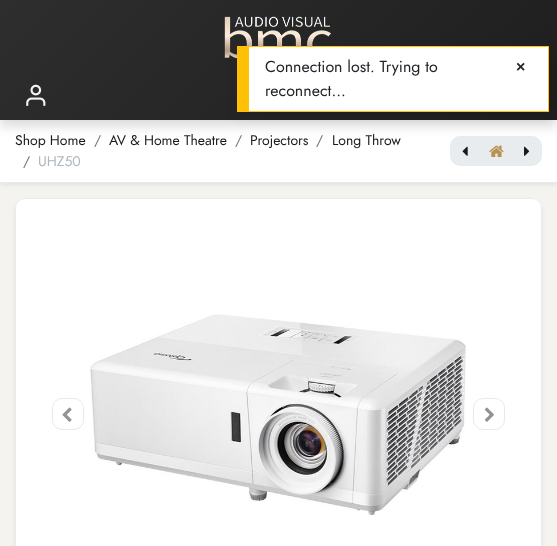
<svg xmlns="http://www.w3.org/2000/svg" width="557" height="546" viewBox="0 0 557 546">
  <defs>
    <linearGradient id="g1" gradientUnits="userSpaceOnUse" x1="109" y1="-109" x2="448" y2="229"><stop offset="0" stop-color="#2e2e2e"/><stop offset="1" stop-color="#1e1e1e"/></linearGradient>
  </defs>
  <rect width="100%" height="100%" fill="#f5f3f0"/>
  <path d="M0 122h557v63H0z" fill="#00000012" filter="blur(2px)"/>
  <path d="M0 120h557v62H0z" fill="#fff"/>
  <rect x="450" y="136" width="92" height="30" rx="10" fill="#e9ecef"/>
  <path d="M0 6h557v120H0z" fill="#00000026" filter="blur(6px)"/>
  <path d="M0 0h557v120H0z" fill="url(#g1)"/>
  <image x="224" y="16" width="107" height="43" href="img/1.png"/>
  <path d="M237 50h312v66H237z" fill="#0000001a" filter="blur(6px)"/>
  <path d="M249 47h299v64H249z" fill="#fff"/>
  <path d="M249 46h300v1H249z" fill="#ffc107"/>
  <path d="M548 46h1v66H548z" fill="#ffc107"/>
  <path d="M249 111h300v1H249z" fill="#ffc107"/>
  <path d="M237 46h12v66H237z" fill="#ffc107"/>
  <image x="26" y="84" width="20" height="22" href="img/2.png"/>
  <path d="M0 182h557v1H0z" fill="#e9ecef"/>
  <image x="462" y="146" width="6" height="10" href="img/3.png"/>
  <image x="489" y="145" width="15" height="12" href="img/4.png"/>
  <image x="524" y="146" width="6" height="10" href="img/5.png"/>
  <rect x="15" y="200" width="527" height="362" rx="10" fill="#00000012" filter="blur(2px)"/>
  <path d="M25 198H532C537.5 198 542 202.5 542 208V546H15V208C15 202.5 19.5 198 25 198Z" fill="#fff"/>
  <rect x="15.5" y="198.5" width="526" height="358" rx="9.5" fill="none" stroke="#e9ecef"/>
  <rect x="52.5" y="398.5" width="31" height="31" rx="9.5" fill="none" stroke="#e7eaed"/>
  <image x="62" y="407" width="10" height="15" href="img/6.png"/>
  <image x="90" y="314" width="376" height="201" href="img/7.png"/>
  <rect x="473.5" y="398.5" width="31" height="31" rx="9.5" fill="none" stroke="#e7eaed"/>
  <image x="484" y="407" width="10" height="15" href="img/8.png"/>
  <g font-family="Jost" font-size="16" fill="#212529">
    <text x="265" y="72">Connection lost. Trying to</text>
    <text x="265" y="96">reconnect...</text>
  </g>
  <text x="516" y="72" font-family="Liberation Sans" font-size="16" font-weight="bold" fill="#212529">×</text>
  <text x="15" y="145" font-family="Jost" font-size="14" fill="#1a1a1a">Shop Home</text>
  <text x="94" y="145" font-family="Jost" font-size="14" fill="#6c757d">/</text>
  <text x="109" y="145" font-family="Jost" font-size="14" fill="#1a1a1a">AV &amp; Home Theatre</text>
  <text x="235" y="145" font-family="Jost" font-size="14" fill="#6c757d">/</text>
  <text x="250" y="145" font-family="Jost" font-size="14" fill="#1a1a1a">Projectors</text>
  <text x="316" y="145" font-family="Jost" font-size="14" fill="#6c757d">/</text>
  <text x="332" y="145" font-family="Jost" font-size="14" fill="#1a1a1a">Long Throw</text>
  <text x="23" y="166" font-family="Jost" font-size="14" fill="#6c757d">/</text>
  <text x="38" y="166" font-family="Jost" font-size="14" fill="#adb5bd">UHZ50</text>
</svg>
